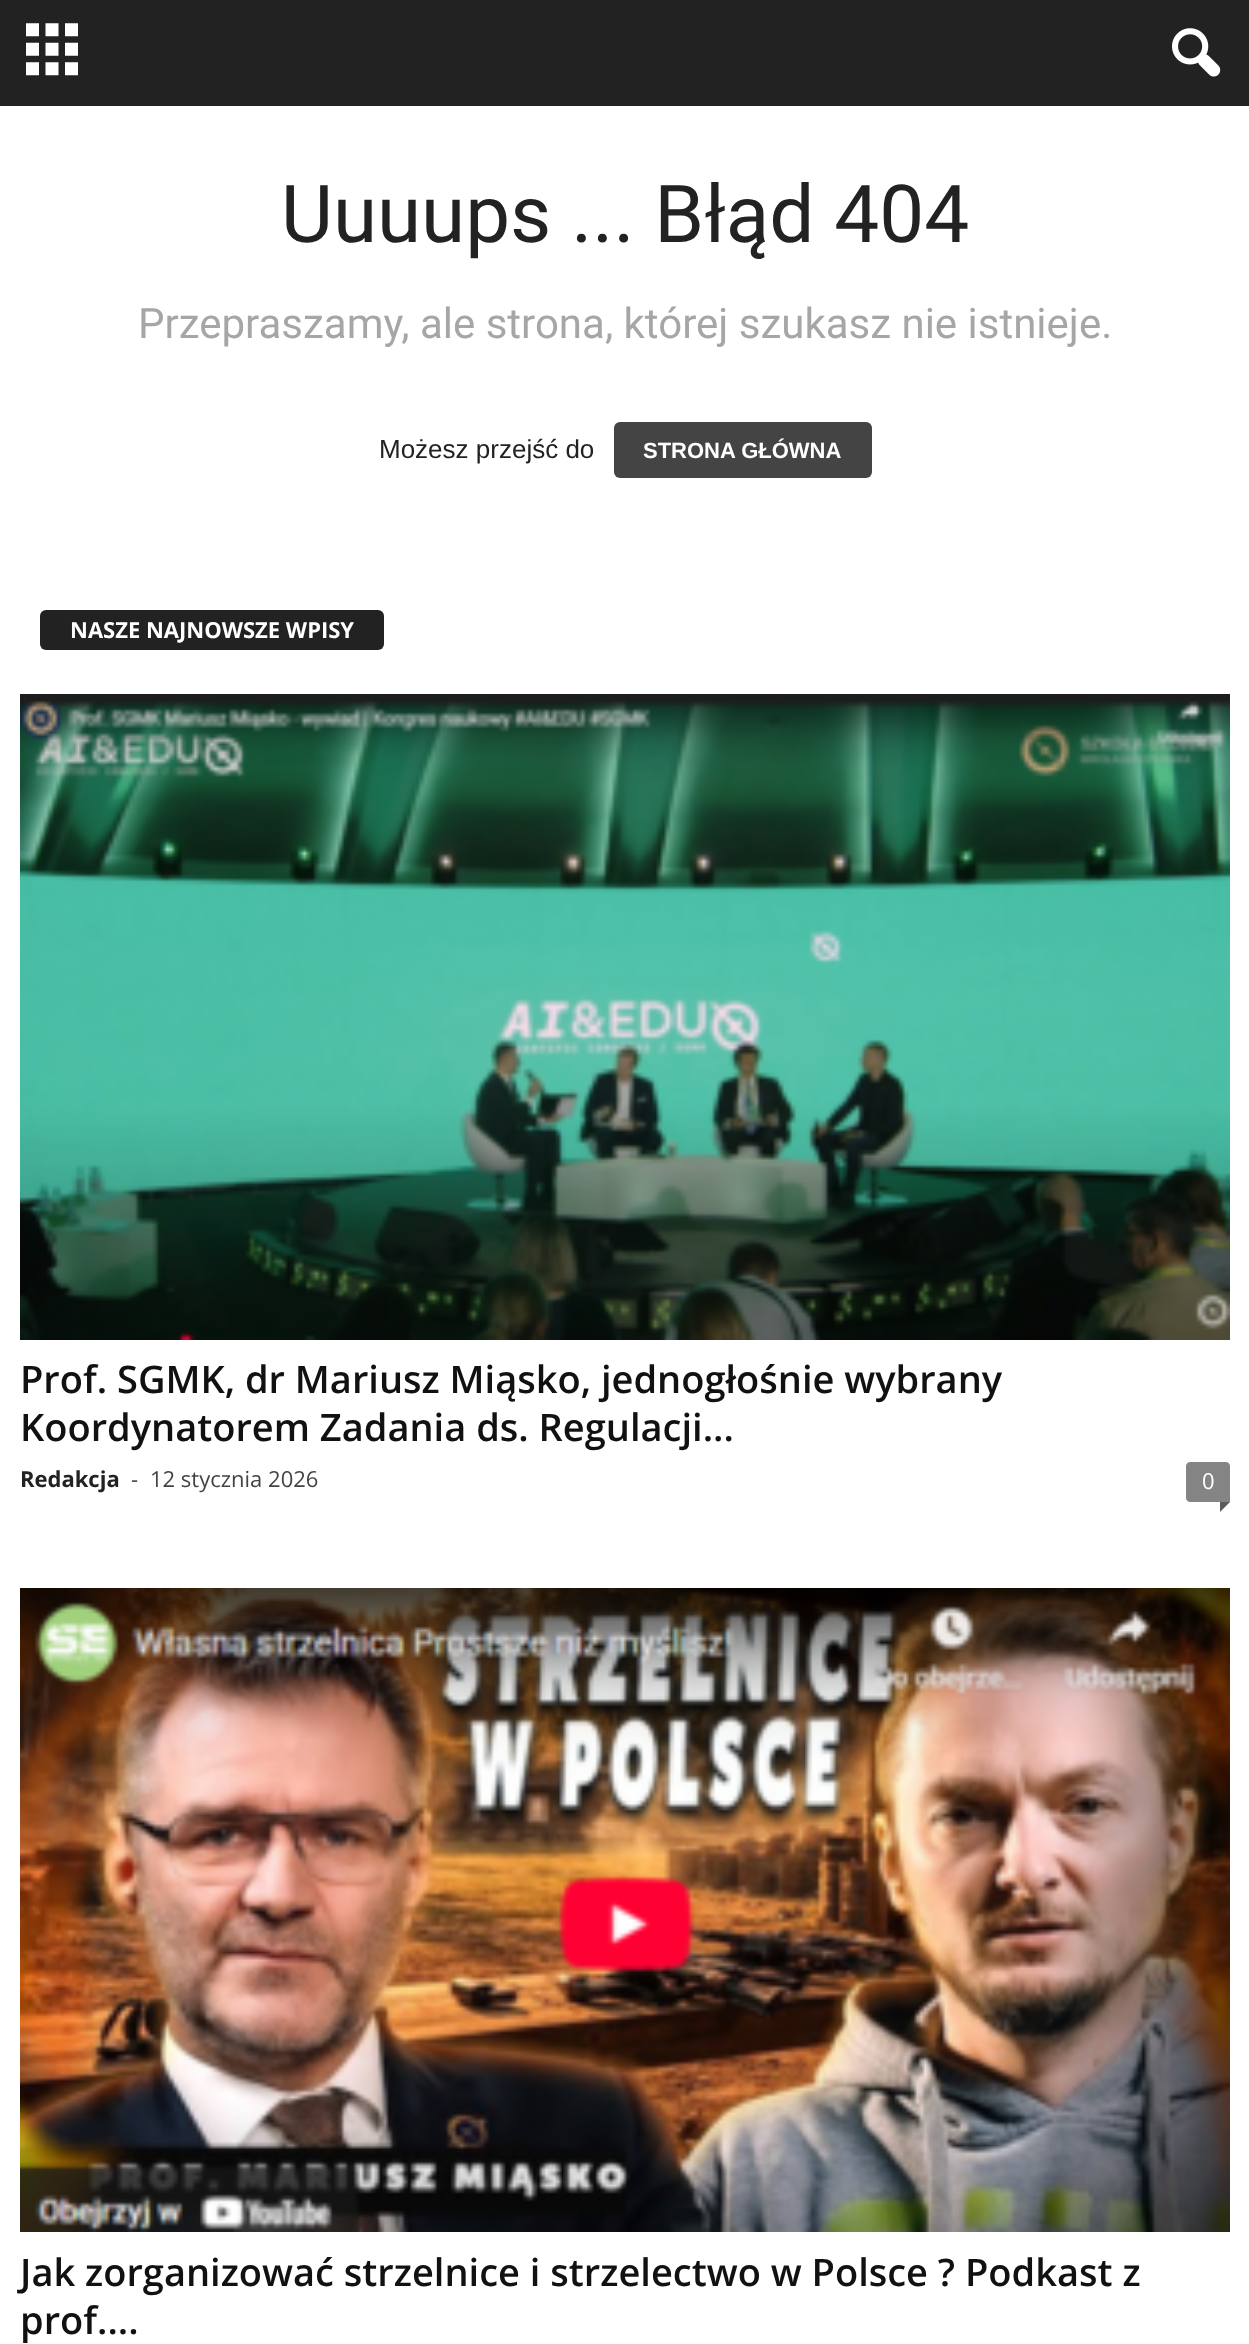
<svg xmlns="http://www.w3.org/2000/svg" width="1249" height="2344" viewBox="0 0 1249 2344">
  <rect width="100%" height="100%" fill="#fff"/>
  <path d="M0 0h1249v106H0z" fill="#222"/>
  <image x="26" y="23" width="52" height="53" href="img/1.png"/>
  <image x="1172" y="28" width="49" height="49" href="img/2.png"/>
  <rect x="614" y="422" width="258" height="56" rx="6" fill="#444"/>
  <rect x="40" y="610" width="344" height="40" rx="6" fill="#222"/>
  <image x="20" y="694" width="1210" height="646" href="img/3.png"/>
  <path d="M1190 1462H1226C1228 1462 1230 1464 1230 1466V1502H1190C1188 1502 1186 1500 1186 1498V1466C1186 1464 1188 1462 1190 1462Z" fill="#848484"/>
  <path d="M1220 1502H1230L1220 1512Z" fill="#5b5b5b"/>
  <image x="20" y="1588" width="1210" height="644" href="img/4.png"/>
  <text x="281" y="242" font-family="Roboto" font-size="80" fill="#222">Uuuups ... Błąd 404</text>
  <text x="138" y="338" font-family="Roboto" font-size="42" fill="#a6a6a6">Przepraszamy, ale strona, której szukasz nie istnieje.</text>
  <text x="379" y="458" font-family="Liberation Sans" font-size="26" fill="#222">Możesz przejść do</text>
  <text x="643" y="458" font-family="Liberation Sans" font-size="22" font-weight="bold" fill="#fff">STRONA GŁÓWNA</text>
  <text x="70" y="638" font-family="Open Sans" font-size="22" font-weight="bold" fill="#fff">NASZE NAJNOWSZE WPISY</text>
  <g font-family="Open Sans" font-size="38" font-weight="600" fill="#111">
    <text x="20" y="1393">Prof. SGMK, dr Mariusz Miąsko, jednogłośnie wybrany</text>
    <text x="20" y="1441">Koordynatorem Zadania ds. Regulacji...</text>
  </g>
  <text x="20" y="1487" font-family="Open Sans" font-size="22" font-weight="bold" fill="#222">Redakcja</text>
  <g font-family="Open Sans" font-size="22" fill="#444">
    <text x="131" y="1487">-</text>
    <text x="150" y="1487">12 stycznia 2026</text>
  </g>
  <text x="1202" y="1489" font-family="Open Sans" font-size="22" fill="#fff">0</text>
  <g font-family="Open Sans" font-size="38" font-weight="600" fill="#111">
    <text x="20" y="2286">Jak zorganizować strzelnice i strzelectwo w Polsce ? Podkast z</text>
    <text x="20" y="2334">prof....</text>
  </g>
</svg>
